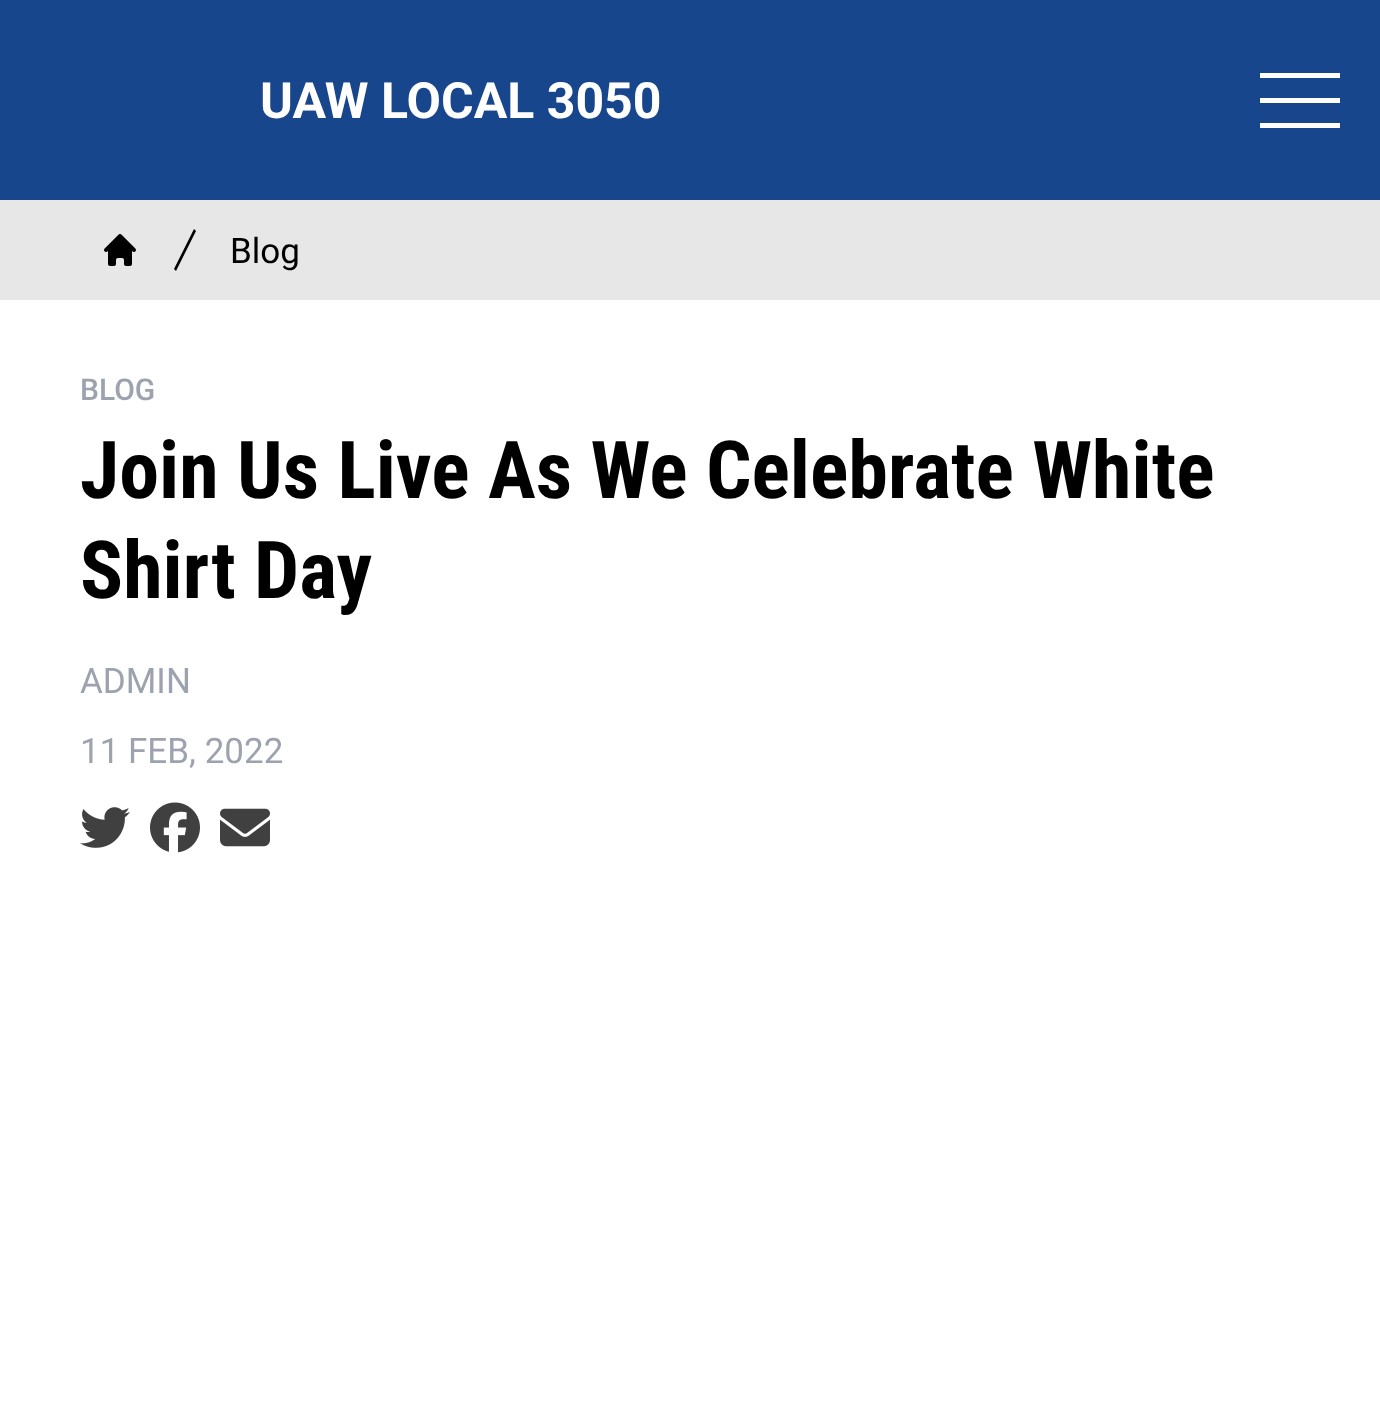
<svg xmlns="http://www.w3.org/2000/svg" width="1380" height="1402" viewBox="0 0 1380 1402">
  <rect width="100%" height="100%" fill="#fff"/>
  <path d="M0 0h1380v200H0z" fill="#18468c"/>
  <path d="M1260 73h80v5H1260z" fill="#fff"/>
  <path d="M1260 98h80v5H1260z" fill="#fff"/>
  <path d="M1260 123h80v5H1260z" fill="#fff"/>
  <path d="M0 200h1380v100H0z" fill="#e7e7e7"/>
  <image x="104" y="234" width="32" height="32" href="img/1.png"/>
  <path d="M174 269L194 229L196 231L176 271Z" fill="#000"/>
  <image x="80" y="807" width="50" height="41" href="img/2.png"/>
  <image x="150" y="802" width="50" height="51" href="img/3.png"/>
  <image x="220" y="808" width="50" height="39" href="img/4.png"/>
  <text x="260" y="118" font-family="Roboto" font-size="50" font-weight="bold" fill="#fff">UAW LOCAL 3050</text>
  <text x="230" y="263" font-family="Roboto" font-size="35" fill="#000">Blog</text>
  <text x="80" y="400" font-family="Roboto" font-size="30" font-weight="500" fill="#9ca3af">BLOG</text>
  <g font-family="Roboto Condensed" font-size="80" font-weight="bold" fill="#000">
    <text x="80" y="498">Join Us Live As We Celebrate White</text>
    <text x="80" y="598">Shirt Day</text>
  </g>
  <g font-family="Roboto" font-size="35" fill="#9ca3af">
    <text x="80" y="693">ADMIN</text>
    <text x="80" y="763">11 FEB, 2022</text>
  </g>
</svg>
